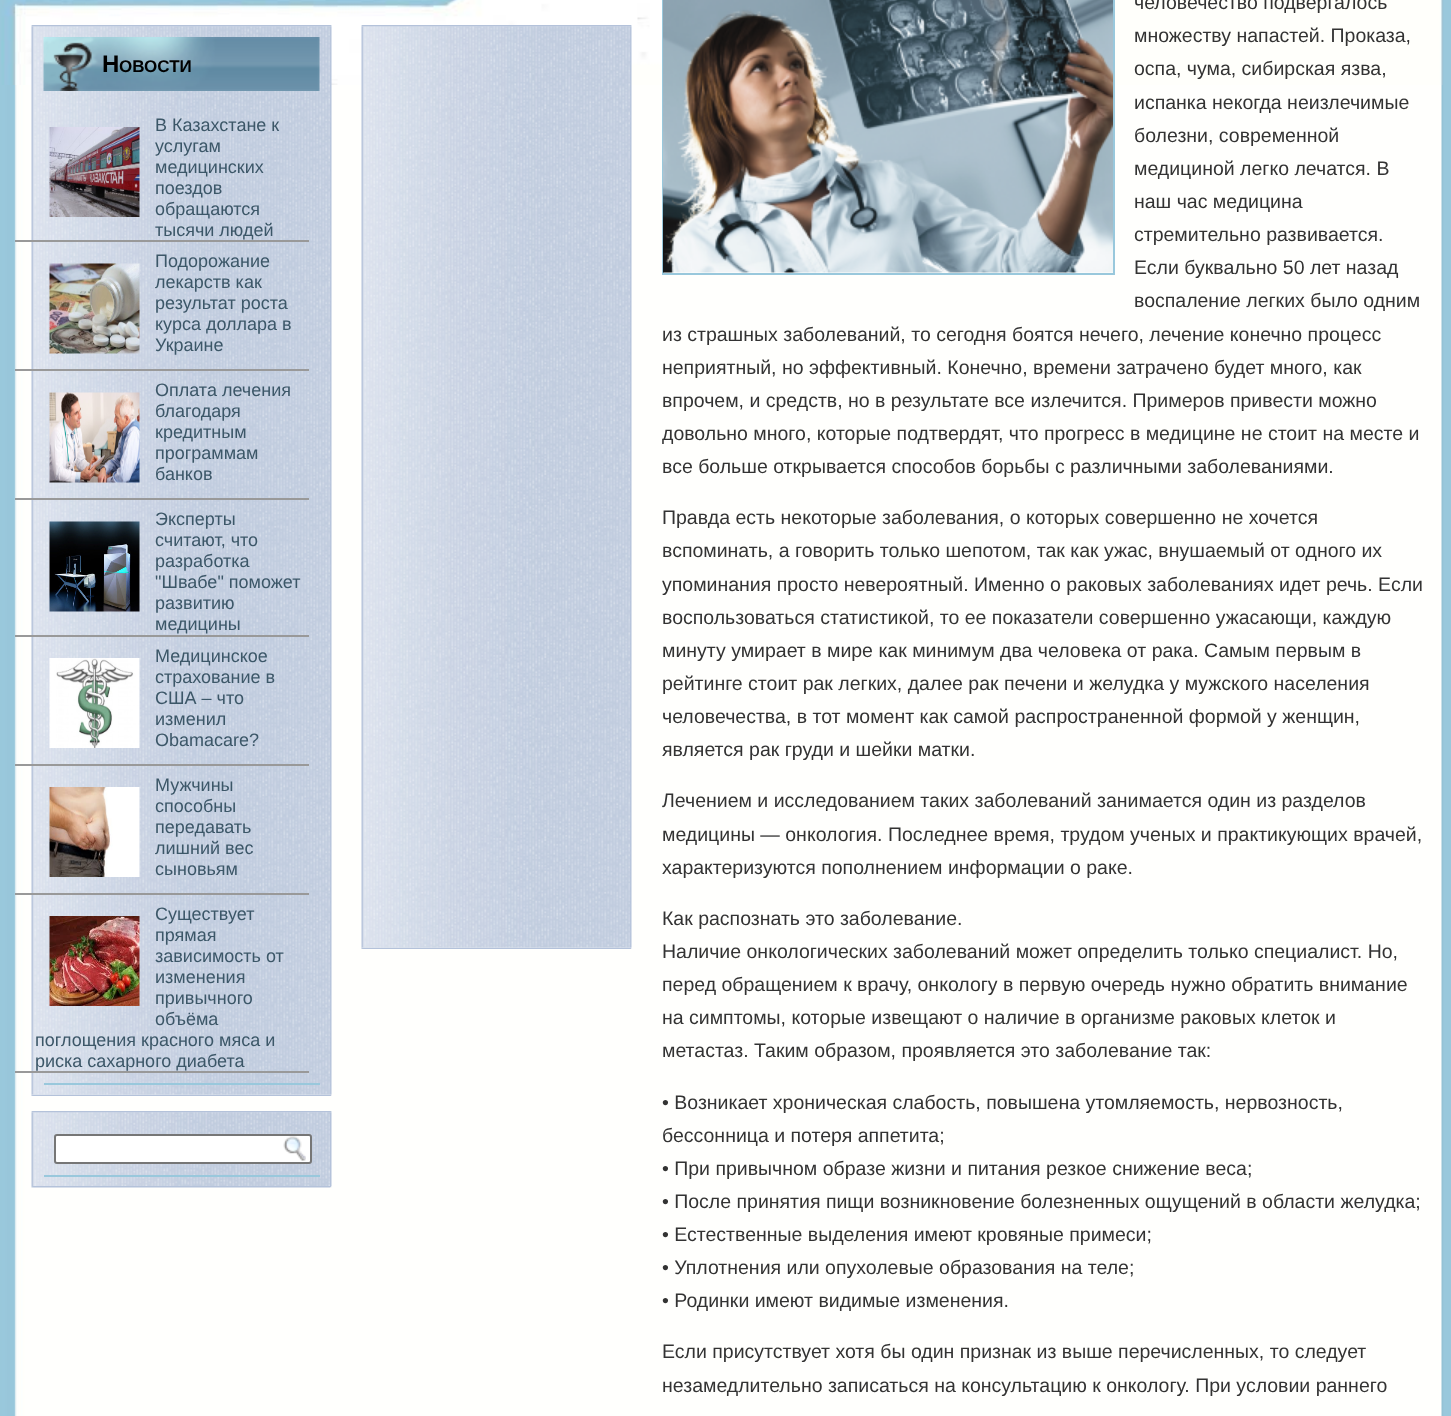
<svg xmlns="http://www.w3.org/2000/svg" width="1451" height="1416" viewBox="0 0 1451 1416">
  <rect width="100%" height="100%" fill="#fff"/>
  <image x="0" y="0" width="1451" height="1416" href="img/1.png"/>
  <image x="1" y="0" width="1442" height="85" href="img/2.png"/>
  <image x="31" y="25" width="299" height="1071" href="img/3.png"/>
  <image x="31" y="25" width="299" height="2" href="img/4.png"/>
  <image x="330" y="26" width="2" height="1069" href="img/8.png"/>
  <image x="330" y="25" width="2" height="1071" href="img/5.png"/>
  <image x="330" y="25" width="2" height="2" href="img/6.png"/>
  <image x="31" y="26" width="299" height="1069" href="img/7.png"/>
  <image x="43" y="37" width="227" height="54" href="img/9.png"/>
  <image x="270" y="37" width="50" height="54" href="img/10.png"/>
  <path d="M44 1083h276v2H44z" fill="#99c8dc"/>
  <path d="M15 240h294v2H15z" fill="#999"/>
  <image x="49" y="127" width="91" height="90" href="img/11.png"/>
  <path d="M15 369h294v2H15z" fill="#999"/>
  <image x="49" y="263" width="91" height="91" href="img/12.png"/>
  <path d="M15 498h294v2H15z" fill="#999"/>
  <image x="49" y="392" width="91" height="91" href="img/13.png"/>
  <path d="M15 635h294v2H15z" fill="#999"/>
  <image x="49" y="521" width="91" height="91" href="img/14.png"/>
  <path d="M15 764h294v2H15z" fill="#999"/>
  <image x="49" y="658" width="91" height="90" href="img/15.png"/>
  <path d="M15 893h294v2H15z" fill="#999"/>
  <image x="49" y="787" width="91" height="90" href="img/16.png"/>
  <path d="M15 1071h294v2H15z" fill="#999"/>
  <image x="49" y="916" width="91" height="90" href="img/17.png"/>
  <image x="31" y="1111" width="299" height="77" href="img/18.png"/>
  <image x="31" y="1111" width="299" height="2" href="img/19.png"/>
  <image x="330" y="1112" width="2" height="74" href="img/23.png"/>
  <image x="330" y="1111" width="2" height="77" href="img/20.png"/>
  <image x="330" y="1111" width="2" height="2" href="img/21.png"/>
  <image x="31" y="1112" width="299" height="74" href="img/22.png"/>
  <path d="M44 1175h276v2H44z" fill="#99c8dc"/>
  <rect x="55" y="1135" width="256" height="28" rx="2" fill="#fff" stroke="#767676" stroke-width="2"/>
  <image x="283" y="1136" width="23" height="25" href="img/24.png"/>
  <image x="361" y="25" width="269" height="924" href="img/25.png"/>
  <image x="361" y="25" width="269" height="2" href="img/26.png"/>
  <image x="630" y="26" width="2" height="922" href="img/29.png"/>
  <image x="630" y="25" width="2" height="924" href="img/27.png"/>
  <image x="630" y="25" width="2" height="2" href="img/6.png"/>
  <image x="361" y="26" width="269" height="922" href="img/28.png"/>
  <path d="M663 -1h451v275H663z" fill="none" stroke="#99c8dc" stroke-width="2"/>
  <image x="663" y="0" width="450" height="273" href="img/30.png"/>
  <text x="102" y="72" font-family="Liberation Sans" font-size="24" font-weight="bold" fill="#000">Н</text>
  <text x="119" y="72" font-family="Liberation Sans" font-size="17" font-weight="bold" fill="#000">ОВОСТИ</text>
  <g font-family="Liberation Sans" font-size="18" fill="#3c5768">
    <text x="155" y="131">В Казахстане к</text>
    <text x="155" y="152">услугам</text>
    <text x="155" y="173">медицинских</text>
    <text x="155" y="194">поездов</text>
    <text x="155" y="215">обращаются</text>
    <text x="155" y="236">тысячи людей</text>
    <text x="155" y="267">Подорожание</text>
    <text x="155" y="288">лекарств как</text>
    <text x="155" y="309">результат роста</text>
    <text x="155" y="330">курса доллара в</text>
    <text x="155" y="351">Украине</text>
    <text x="155" y="396">Оплата лечения</text>
    <text x="155" y="417">благодаря</text>
    <text x="155" y="438">кредитным</text>
    <text x="155" y="459">программам</text>
    <text x="155" y="480">банков</text>
    <text x="155" y="525">Эксперты</text>
    <text x="155" y="546">считают, что</text>
    <text x="155" y="567">разработка</text>
    <text x="155" y="588">"Швабе" поможет</text>
    <text x="155" y="609">развитию</text>
    <text x="155" y="630">медицины</text>
    <text x="155" y="662">Медицинское</text>
    <text x="155" y="683">страхование в</text>
    <text x="155" y="704">США – что</text>
    <text x="155" y="725">изменил</text>
    <text x="155" y="746">Obamacare?</text>
    <text x="155" y="791">Мужчины</text>
    <text x="155" y="812">способны</text>
    <text x="155" y="833">передавать</text>
    <text x="155" y="854">лишний вес</text>
    <text x="155" y="875">сыновьям</text>
    <text x="155" y="920">Существует</text>
    <text x="155" y="941">прямая</text>
    <text x="155" y="962">зависимость от</text>
    <text x="155" y="983">изменения</text>
    <text x="155" y="1004">привычного</text>
    <text x="155" y="1025">объёма</text>
    <text x="35" y="1046">поглощения красного мяса и</text>
    <text x="35" y="1067">риска сахарного диабета</text>
  </g>
  <g font-family="Liberation Sans" font-size="19.5" fill="#333">
    <text x="1134" y="9">человечество подвергалось</text>
    <text x="1134" y="42">множеству напастей. Проказа,</text>
    <text x="1134" y="75">оспа, чума, сибирская язва,</text>
    <text x="1134" y="109">испанка некогда неизлечимые</text>
    <text x="1134" y="142">болезни, современной</text>
    <text x="1134" y="175">медициной легко лечатся. В</text>
    <text x="1134" y="208">наш час медицина</text>
    <text x="1134" y="241">стремительно развивается.</text>
    <text x="1134" y="274">Если буквально 50 лет назад</text>
    <text x="1134" y="307">воспаление легких было одним</text>
    <text x="662" y="341">из страшных заболеваний, то сегодня боятся нечего, лечение конечно процесс</text>
    <text x="662" y="374">неприятный, но эффективный. Конечно, времени затрачено будет много, как</text>
    <text x="662" y="407">впрочем, и средств, но в результате все излечится. Примеров привести можно</text>
    <text x="662" y="440">довольно много, которые подтвердят, что прогресс в медицине не стоит на месте и</text>
    <text x="662" y="473">все больше открывается способов борьбы с различными заболеваниями.</text>
    <text x="662" y="524">Правда есть некоторые заболевания, о которых совершенно не хочется</text>
    <text x="662" y="557">вспоминать, а говорить только шепотом, так как ужас, внушаемый от одного их</text>
    <text x="662" y="591">упоминания просто невероятный. Именно о раковых заболеваниях идет речь. Если</text>
    <text x="662" y="624">воспользоваться статистикой, то ее показатели совершенно ужасающи, каждую</text>
    <text x="662" y="657">минуту умирает в мире как минимум два человека от рака. Самым первым в</text>
    <text x="662" y="690">рейтинге стоит рак легких, далее рак печени и желудка у мужского населения</text>
    <text x="662" y="723">человечества, в тот момент как самой распространенной формой у женщин,</text>
    <text x="662" y="756">является рак груди и шейки матки.</text>
    <text x="662" y="807">Лечением и исследованием таких заболеваний занимается один из разделов</text>
    <text x="662" y="841">медицины — онкология. Последнее время, трудом ученых и практикующих врачей,</text>
    <text x="662" y="874">характеризуются пополнением информации о раке.</text>
    <text x="662" y="925">Как распознать это заболевание.</text>
    <text x="662" y="958">Наличие онкологических заболеваний может определить только специалист. Но,</text>
    <text x="662" y="991">перед обращением к врачу, онкологу в первую очередь нужно обратить внимание</text>
    <text x="662" y="1024">на симптомы, которые извещают о наличие в организме раковых клеток и</text>
    <text x="662" y="1057">метастаз. Таким образом, проявляется это заболевание так:</text>
    <text x="662" y="1109">• Возникает хроническая слабость, повышена утомляемость, нервозность,</text>
    <text x="662" y="1142">бессонница и потеря аппетита;</text>
    <text x="662" y="1175">• При привычном образе жизни и питания резкое снижение веса;</text>
    <text x="662" y="1208">• После принятия пищи возникновение болезненных ощущений в области желудка;</text>
    <text x="662" y="1241">• Естественные выделения имеют кровяные примеси;</text>
    <text x="662" y="1274">• Уплотнения или опухолевые образования на теле;</text>
    <text x="662" y="1307">• Родинки имеют видимые изменения.</text>
    <text x="662" y="1358">Если присутствует хотя бы один признак из выше перечисленных, то следует</text>
    <text x="662" y="1392">незамедлительно записаться на консультацию к онкологу. При условии раннего</text>
  </g>
</svg>
